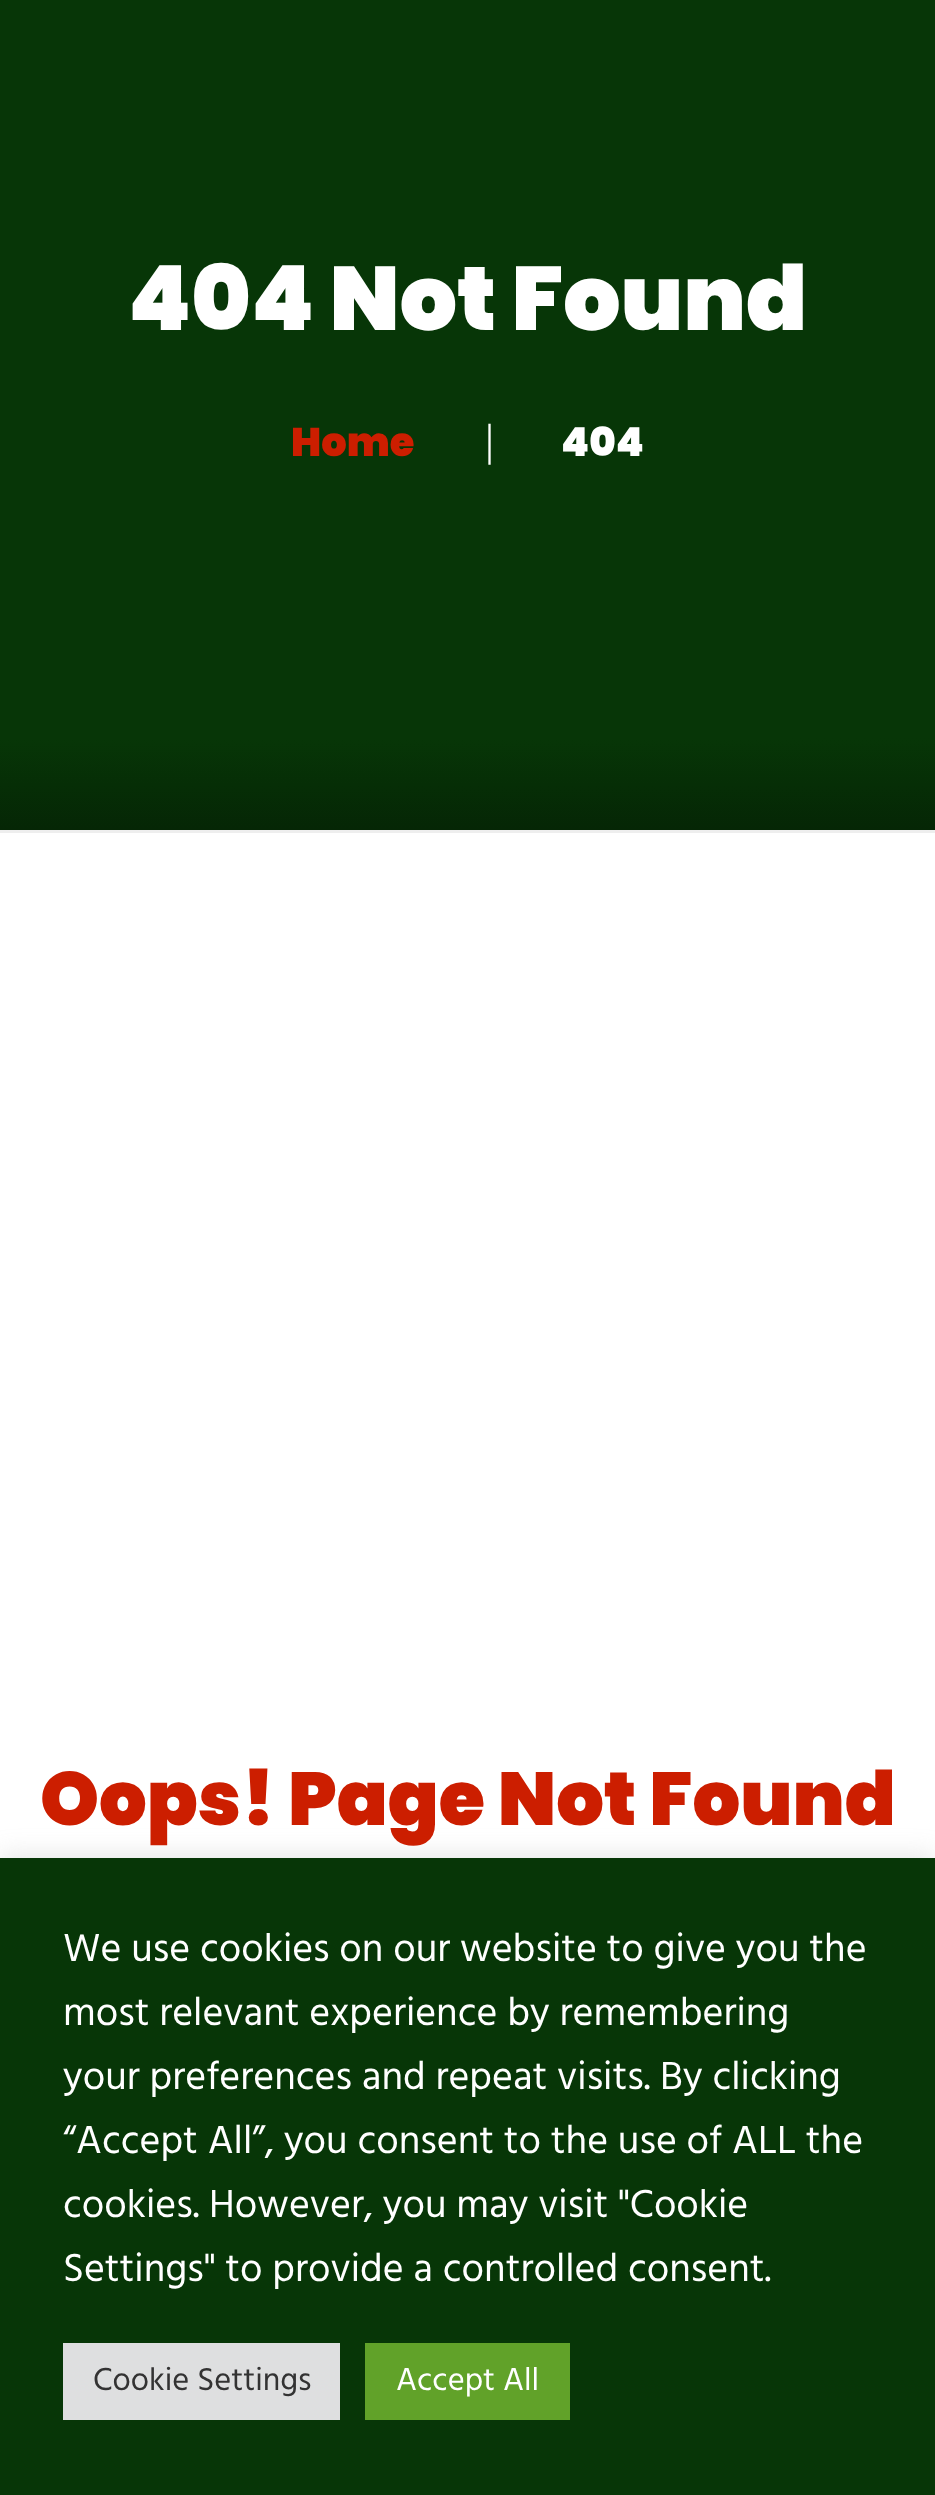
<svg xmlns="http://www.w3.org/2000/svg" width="935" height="2495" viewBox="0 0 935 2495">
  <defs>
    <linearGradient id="g1" gradientUnits="userSpaceOnUse" x1="467" y1="-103" x2="468" y2="923"><stop offset="0.82" stop-color="#073607"/><stop offset="1" stop-color="#031603"/></linearGradient>
  </defs>
  <rect width="100%" height="100%" fill="#fff"/>
  <path d="M0 830h935v3H0z" fill="#eee"/>
  <path d="M0 0h935v830H0z" fill="url(#g1)"/>
  <path d="M0 1855h935v638H0z" fill="#acabab4d" filter="blur(12.5px)"/>
  <path d="M0 1858h935v637H0z" fill="#073607"/>
  <path d="M63 2343h277v77H63z" fill="#dedfe0"/>
  <path d="M365 2343h205v77H365z" fill="#61a229"/>
  <text x="128" y="330" font-family="Poppins" font-size="90" font-weight="900" fill="#fff">404 Not Found</text>
  <text x="291" y="456" font-family="Poppins" font-size="40" font-weight="900" fill="#cc1e00">Home</text>
  <text x="485" y="455" font-family="Liberation Serif" font-size="45" fill="#fff">|</text>
  <text x="561" y="456" font-family="Poppins" font-size="40" font-weight="900" fill="#fff">404</text>
  <text x="40" y="1825" font-family="Poppins" font-size="75" font-weight="900" fill="#cc1e00">Oops! Page Not Found</text>
  <g font-family="Hind" font-size="40" fill="#fff">
    <text x="63" y="1961">We use cookies on our website to give you the</text>
    <text x="63" y="2025">most relevant experience by remembering</text>
    <text x="63" y="2089">your preferences and repeat visits. By clicking</text>
    <text x="63" y="2153">“Accept All”, you consent to the use of ALL the</text>
    <text x="63" y="2217">cookies. However, you may visit "Cookie</text>
    <text x="63" y="2281">Settings" to provide a controlled consent.</text>
  </g>
  <text x="93" y="2390" font-family="Hind" font-size="32.5" fill="#333">Cookie Settings</text>
  <text x="396" y="2390" font-family="Hind" font-size="32.5" fill="#fff">Accept All</text>
</svg>
